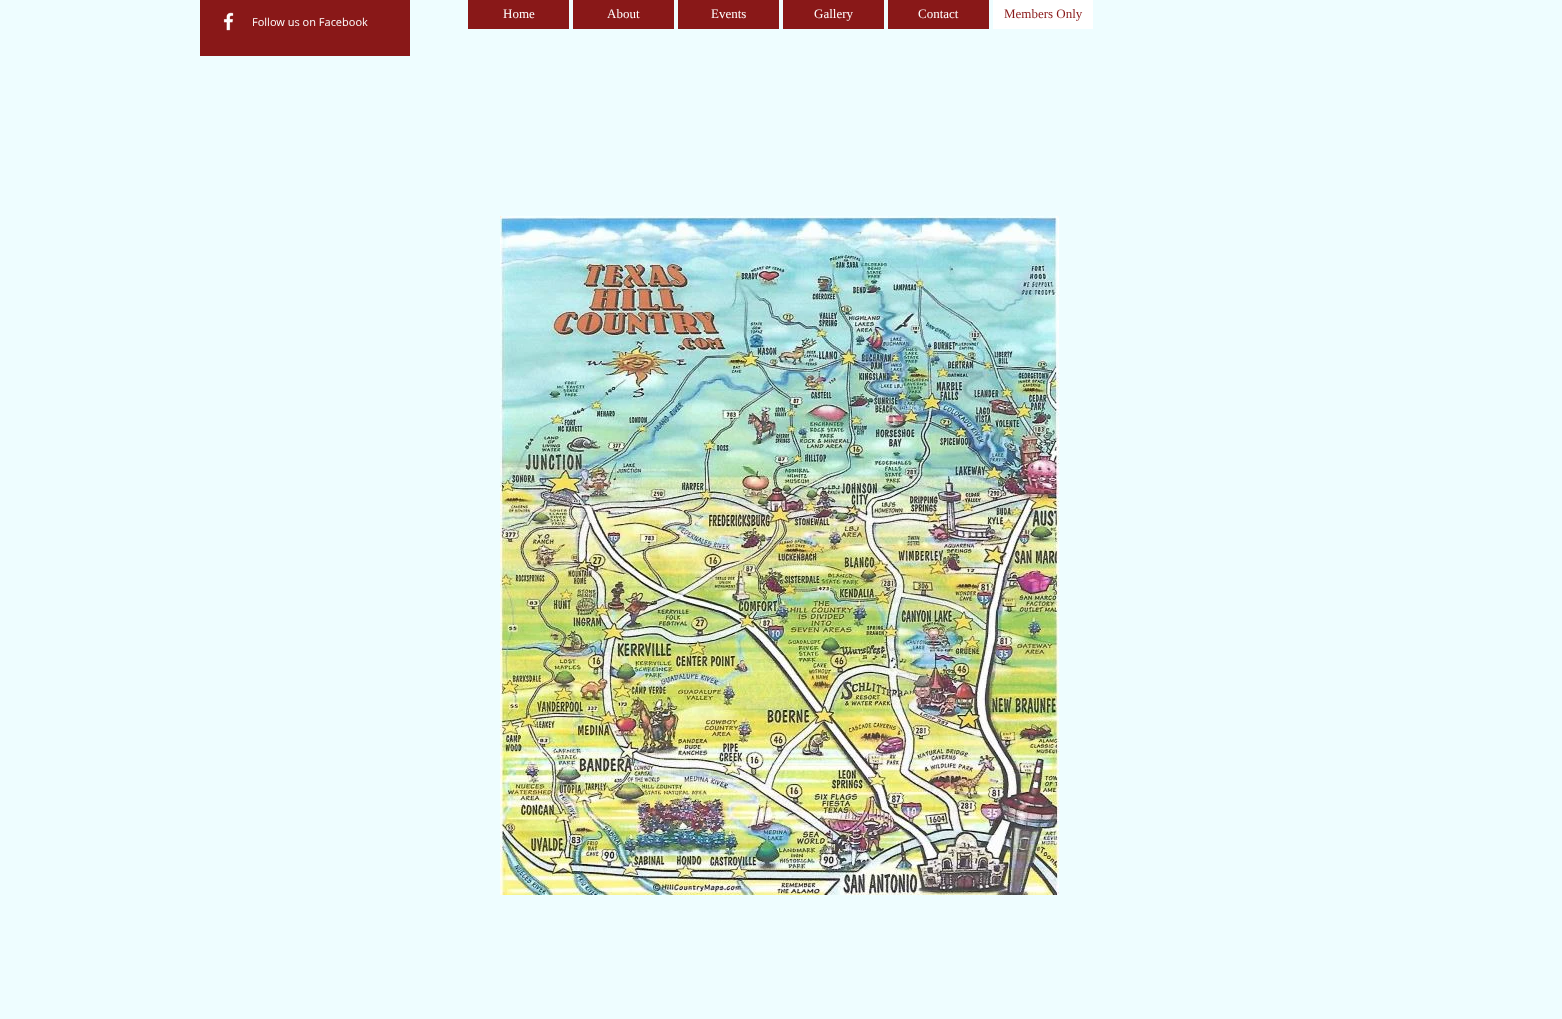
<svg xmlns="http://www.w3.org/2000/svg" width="1562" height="1019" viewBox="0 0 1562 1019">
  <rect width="100%" height="100%" fill="#eefdff"/>
  <path d="M468 0h101v29H468z" fill="#891818"/>
  <path d="M573 0h101v29H573z" fill="#891818"/>
  <path d="M678 0h101v29H678z" fill="#891818"/>
  <path d="M783 0h101v29H783z" fill="#891818"/>
  <path d="M888 0h101v29H888z" fill="#891818"/>
  <path d="M993 0h100v29H993z" fill="#fff"/>
  <path d="M200 0h210v56H200z" fill="#891818"/>
  <image x="223" y="12" width="11" height="19" href="img/1.png"/>
  <image x="500" y="216" width="559" height="679" href="img/2.png"/>
  <g font-family="Liberation Serif" font-size="13" fill="#fff">
    <text x="503" y="18">Home</text>
    <text x="607" y="18">About</text>
    <text x="711" y="18">Events</text>
    <text x="814" y="18">Gallery</text>
    <text x="918" y="18">Contact</text>
  </g>
  <text x="1004" y="18" font-family="Liberation Serif" font-size="13" fill="#891818">Members Only</text>
  <text x="252" y="26" font-family="Open Sans" font-size="11" fill="#fff">Follow us on Facebook</text>
</svg>
